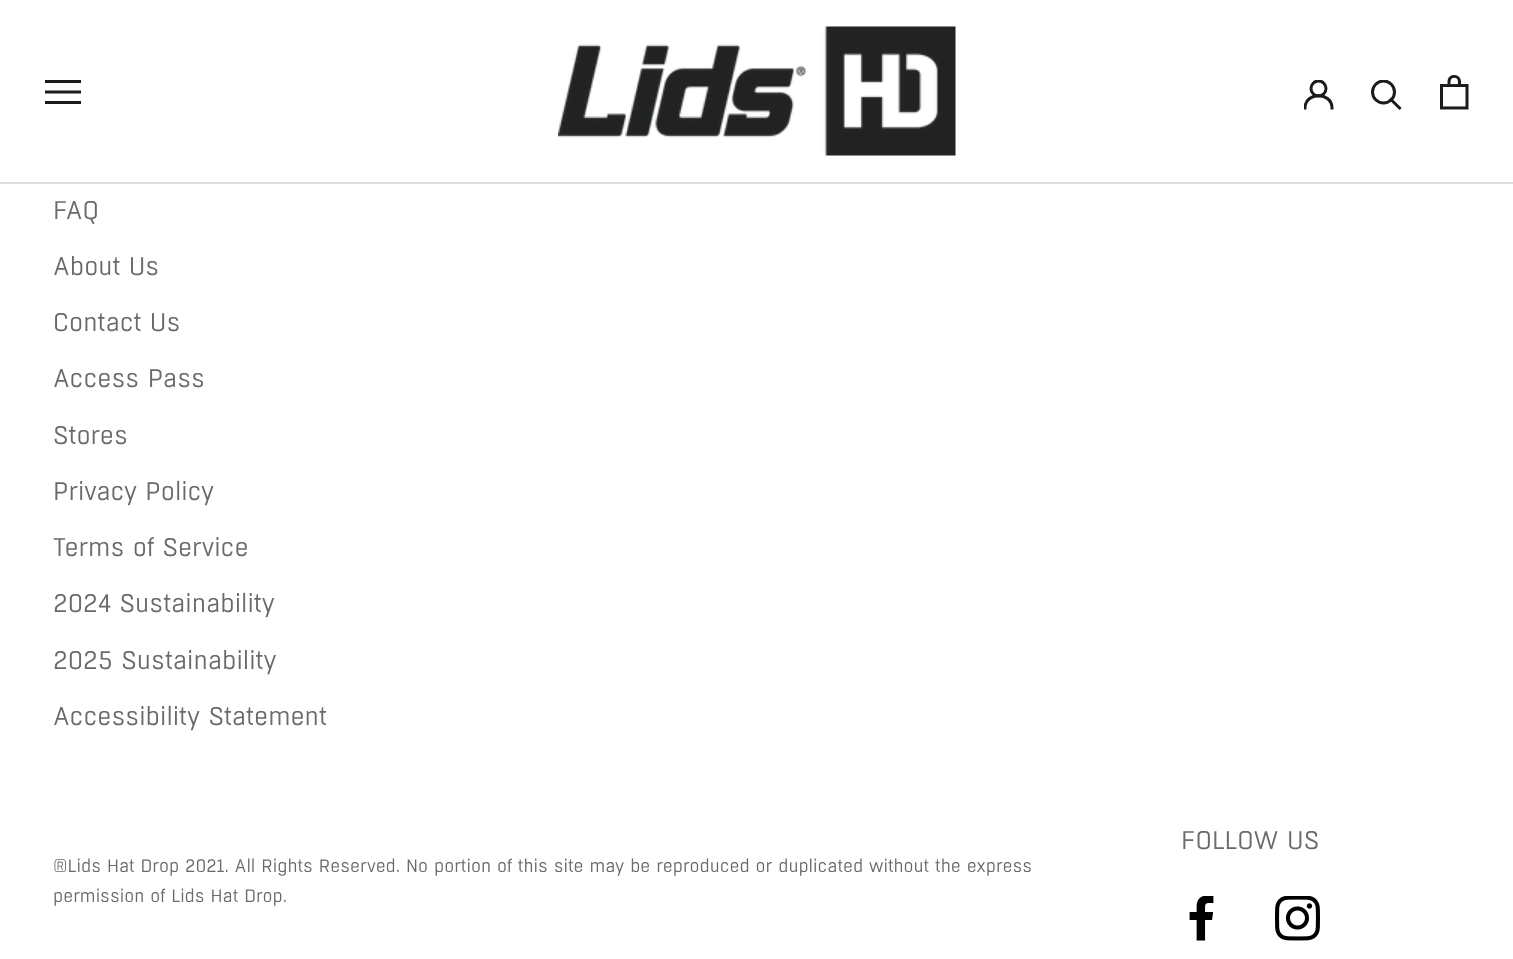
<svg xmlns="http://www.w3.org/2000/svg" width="1513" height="959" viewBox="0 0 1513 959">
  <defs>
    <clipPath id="clip1"><path d="M1304 80h30v30H1304z"/></clipPath>
    <clipPath id="clip2"><path d="M1371 80h32v31H1371z"/></clipPath>
  </defs>
  <rect width="100%" height="100%" fill="#fff"/>
  <path d="M0 182h1513v2H0z" fill="#ddd"/>
  <path d="M45 104V101H81V104ZM45 90.5H81V93.5H45ZM45 80H81V83H45Z" fill="#1c1b1b"/>
  <image x="558" y="26" width="398" height="130" href="img/1.png"/>
  <g clip-path="url(#clip1)">
    <path d="M1305 108C1305 91.5 1332 91.5 1332 108" fill="none" stroke="#1c1b1b" stroke-width="3" stroke-linecap="square"/>
    <circle cx="1318.5" cy="88.5" r="7.5" fill="none" stroke="#1c1b1b" stroke-width="3"/>
  </g>
  <path d="M1399.5 108L1391 99.5" fill="none" stroke="#1c1b1b" stroke-width="3" stroke-linecap="square"/>
  <g clip-path="url(#clip2)">
    <circle cx="1383.5" cy="92" r="11" fill="none" stroke="#1c1b1b" stroke-width="3"/>
  </g>
  <image x="1440" y="75" width="29" height="35" href="img/2.png"/>
  <image x="1189" y="896" width="25" height="45" href="img/3.png"/>
  <image x="1275" y="896" width="45" height="45" href="img/4.png"/>
  <g font-family="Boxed" font-size="25.5" fill="#6a6a6a">
    <text x="53" y="219">FAQ</text>
    <text x="53" y="275">About Us</text>
    <text x="53" y="331">Contact Us</text>
    <text x="53" y="387">Access Pass</text>
    <text x="53" y="444">Stores</text>
    <text x="53" y="500">Privacy Policy</text>
    <text x="53" y="556">Terms of Service</text>
    <text x="53" y="612">2024 Sustainability</text>
    <text x="53" y="669">2025 Sustainability</text>
    <text x="53" y="725">Accessibility Statement</text>
    <text x="1181" y="849">FOLLOW US</text>
  </g>
  <g font-family="Boxed" font-size="18" fill="#6a6a6a">
    <text x="53" y="872">®Lids Hat Drop 2021. All Rights Reserved. No portion of this site may be reproduced or duplicated without the express</text>
    <text x="53" y="902">permission of Lids Hat Drop.</text>
  </g>
</svg>
